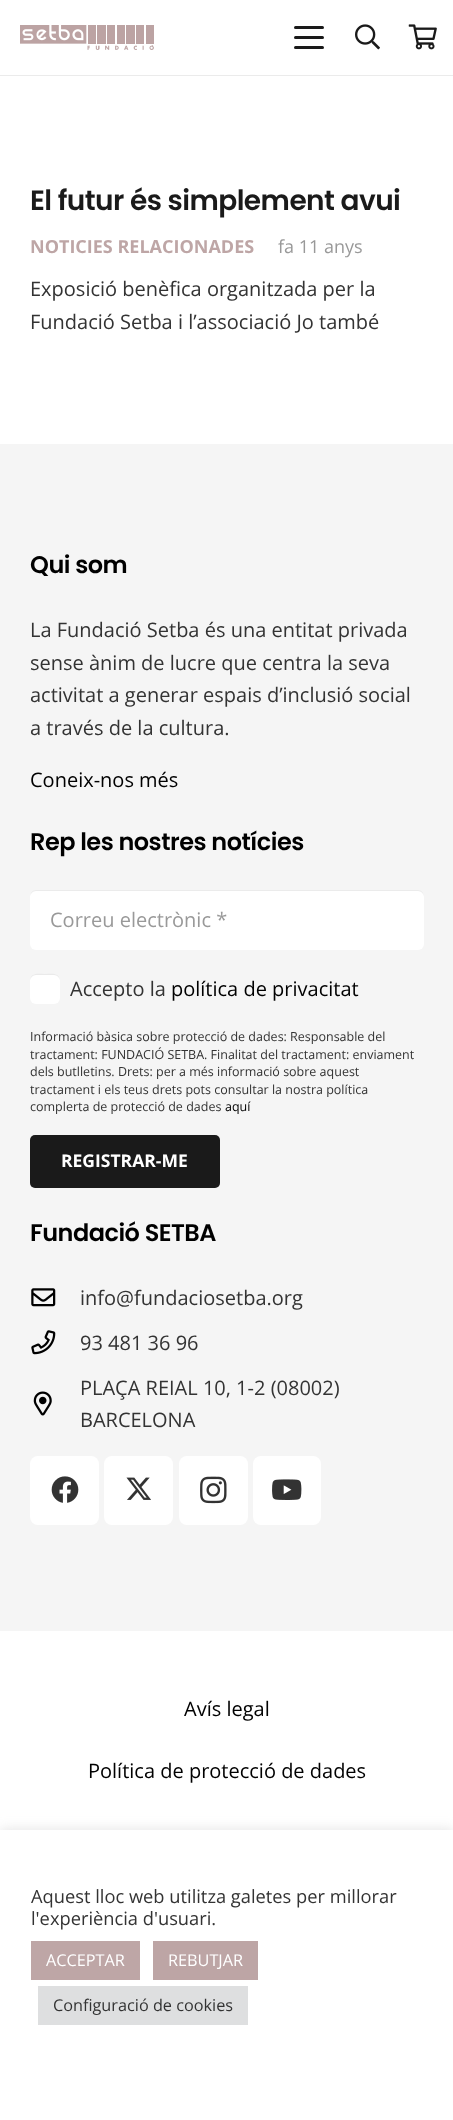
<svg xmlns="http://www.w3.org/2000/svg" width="453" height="2120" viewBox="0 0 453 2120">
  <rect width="100%" height="100%" fill="#fff"/>
  <path d="M0 75V76H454V1V75Z" fill="#ebebeb"/>
  <image x="20" y="25" width="134" height="25" href="img/1.png"/>
  <rect x="294" y="36" width="30" height="3" rx="1.5" fill="#1a1a1a"/>
  <rect x="294" y="26" width="30" height="3" rx="1.5" fill="#1a1a1a"/>
  <rect x="294" y="46" width="30" height="3" rx="1.5" fill="#1a1a1a"/>
  <image x="355" y="24" width="25" height="26" href="img/2.png"/>
  <image x="408" y="24" width="29" height="26" href="img/3.png"/>
  <path d="M0 444h453v1187H0z" fill="#f5f5f5"/>
  <rect x="30" y="890" width="394" height="60" rx="6" fill="#fff"/>
  <path d="M36 891H418C421 891 424 894 424 897C424 893 422 890 418 890H36C32 890 30 893 30 897C30 894 33 891 36 891Z" fill="#ebebeb"/>
  <rect x="30" y="974" width="30" height="30" rx="6" fill="#fff"/>
  <path d="M36 975H54C57 975 60 978 60 981C60 972 51.5 974 45 974C38.5 974 30 972 30 981C30 978 33 975 36 975Z" fill="#eaeaea"/>
  <rect x="30" y="1135" width="190" height="53" rx="5" fill="#1a1a1a"/>
  <image x="31" y="1288" width="25" height="19" href="img/4.png"/>
  <image x="31" y="1330" width="25" height="25" href="img/5.png"/>
  <image x="33" y="1391" width="19" height="25" href="img/6.png"/>
  <rect x="30" y="1456" width="69" height="69" rx="8" fill="#fff"/>
  <image x="51" y="1476" width="28" height="27" href="img/7.png"/>
  <rect x="104" y="1456" width="69" height="69" rx="8" fill="#fff"/>
  <image x="126" y="1477" width="25" height="23" href="img/8.png"/>
  <rect x="179" y="1456" width="69" height="69" rx="8" fill="#fff"/>
  <image x="200" y="1476" width="27" height="28" href="img/9.png"/>
  <rect x="253" y="1456" width="68" height="69" rx="8" fill="#fff"/>
  <image x="272" y="1479" width="30" height="21" href="img/10.png"/>
  <path d="M0 1829h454v290H0z" fill="#acabab4d" filter="blur(6px)"/>
  <path d="M0 1830h453v290H0z" fill="#fff"/>
  <path d="M31 1941h109v39H31z" fill="#bea6a6"/>
  <path d="M153 1941h105v39H153z" fill="#bda5a5"/>
  <path d="M38 1986h210v39H38z" fill="#dedfe0"/>
  <text x="30" y="210" font-family="Poppins" font-size="28" font-weight="600" letter-spacing="-0.55" fill="#1a1a1a">El futur és simplement avui</text>
  <text x="30" y="253" font-family="Open Sans" font-size="18" font-weight="bold" fill="#bea6a6">NOTICIES RELACIONADES</text>
  <text x="278" y="253" font-family="Open Sans" font-size="18" fill="#999">fa 11 anys</text>
  <g font-family="Open Sans" font-size="20" fill="#333">
    <text x="30" y="296">Exposició benèfica organitzada per la</text>
    <text x="30" y="329">Fundació Setba i l’associació Jo també</text>
  </g>
  <text x="30" y="573" font-family="Poppins" font-size="24" font-weight="600" letter-spacing="-0.5" fill="#000">Qui som</text>
  <g font-family="Open Sans" font-size="20" fill="#333">
    <text x="30" y="637">La Fundació Setba és una entitat privada</text>
    <text x="30" y="670">sense ànim de lucre que centra la seva</text>
    <text x="30" y="702">activitat a generar espais d’inclusió social</text>
    <text x="30" y="735">a través de la cultura.</text>
  </g>
  <text x="30" y="787" font-family="Open Sans" font-size="20" fill="#000">Coneix-nos més</text>
  <text x="30" y="850" font-family="Poppins" font-size="24" font-weight="600" letter-spacing="-0.5" fill="#000">Rep les nostres notícies</text>
  <text x="50" y="927" font-family="Open Sans" font-size="20" fill="#999">Correu electrònic *</text>
  <text x="70" y="996" font-family="Open Sans" font-size="20" fill="#333">Accepto la</text>
  <text x="171" y="996" font-family="Open Sans" font-size="20" fill="#000">política de privacitat</text>
  <g font-family="Open Sans" font-size="12.5" fill="#333">
    <text x="30" y="1041">Informació bàsica sobre protecció de dades: Responsable del</text>
    <text x="30" y="1059">tractament: FUNDACIÓ SETBA. Finalitat del tractament: enviament</text>
    <text x="30" y="1076">dels butlletins. Drets: per a més informació sobre aquest</text>
    <text x="30" y="1094">tractament i els teus drets pots consultar la nostra política</text>
    <text x="30" y="1111">complerta de protecció de dades</text>
  </g>
  <text x="225" y="1111" font-family="Open Sans" font-size="12.5" fill="#000">aquí</text>
  <text x="61" y="1167" font-family="Open Sans" font-size="17.5" font-weight="bold" fill="#fff">REGISTRAR-ME</text>
  <text x="30" y="1241" font-family="Poppins" font-size="24" font-weight="600" letter-spacing="-0.5" fill="#000">Fundació SETBA</text>
  <g font-family="Open Sans" font-size="20" fill="#333">
    <text x="80" y="1305">info@fundaciosetba.org</text>
    <text x="80" y="1350">93 481 36 96</text>
    <text x="80" y="1395">PLAÇA REIAL 10, 1-2 (08002)</text>
    <text x="80" y="1427">BARCELONA</text>
  </g>
  <g font-family="Open Sans" font-size="20" fill="#000">
    <text x="184" y="1716">Avís legal</text>
    <text x="88" y="1778">Política de protecció de dades</text>
  </g>
  <g font-family="Open Sans" font-size="18.3" fill="#333">
    <text x="31" y="1903">Aquest lloc web utilitza galetes per millorar</text>
    <text x="31" y="1925">l'experiència d'usuari.</text>
  </g>
  <g font-family="Open Sans" font-size="16.25" fill="#fff">
    <text x="46" y="1966">ACCEPTAR</text>
    <text x="168" y="1966">REBUTJAR</text>
  </g>
  <text x="53" y="2011" font-family="Open Sans" font-size="16.25" fill="#333">Configuració de cookies</text>
</svg>
